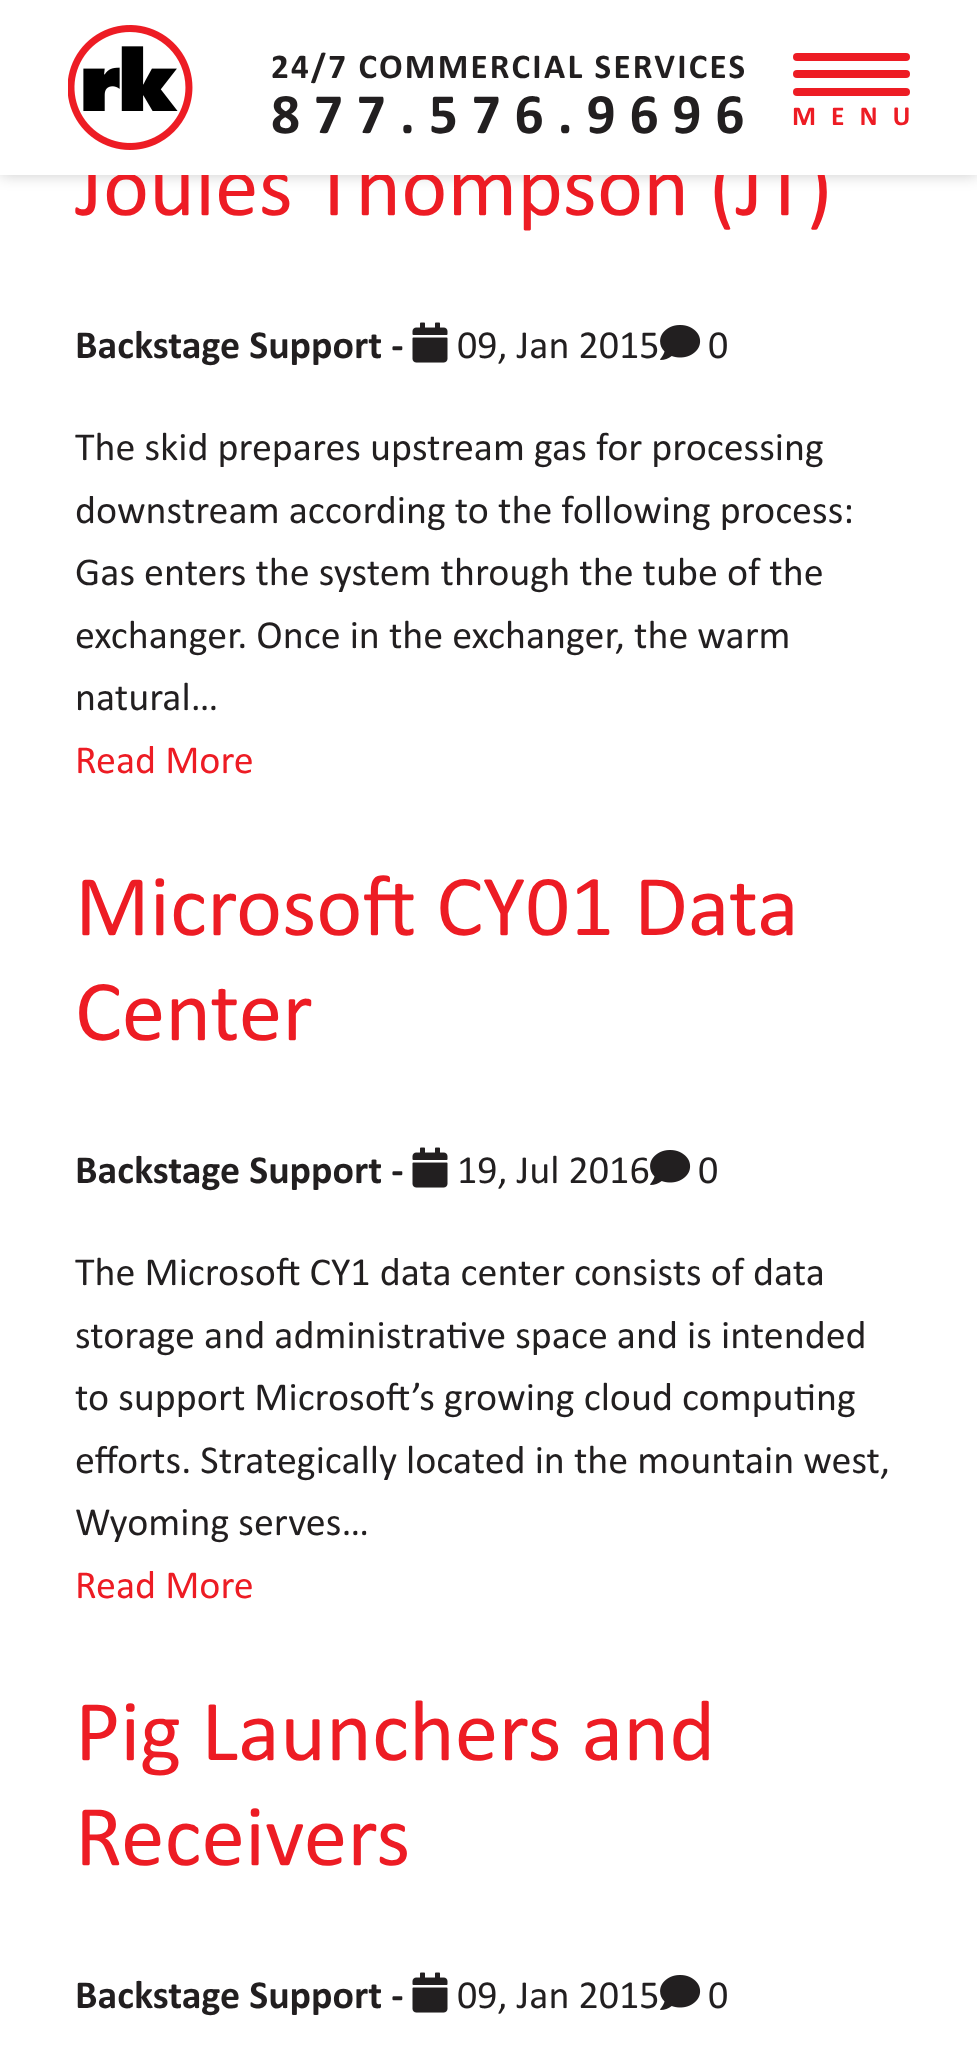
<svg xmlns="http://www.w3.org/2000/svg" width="977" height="2066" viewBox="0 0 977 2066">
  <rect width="100%" height="100%" fill="#fff"/>
  <path d="M0 0h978v175H0z" fill="#00000033" filter="blur(7.5px)"/>
  <image x="412" y="322" width="36" height="41" href="img/2.png"/>
  <image x="660" y="325" width="41" height="35" href="img/3.png"/>
  <image x="412" y="1147" width="36" height="41" href="img/2.png"/>
  <image x="650" y="1150" width="41" height="35" href="img/3.png"/>
  <image x="412" y="1972" width="36" height="41" href="img/2.png"/>
  <image x="660" y="1975" width="41" height="35" href="img/3.png"/>
  <text x="75" y="215" font-family="Calibri" font-size="87.5" fill="#ed1c24">Joules Thompson (JT)</text>
  <path d="M0 0h977v175H0z" fill="#fff"/>
  <image x="68" y="25" width="125" height="125" href="img/1.png"/>
  <text x="792" y="125" font-family="Calibri" font-size="27.5" font-weight="bold" letter-spacing="15" fill="#ed1c24">MENU</text>
  <rect x="793" y="88" width="117" height="8" rx="4" fill="#ed1c24"/>
  <rect x="793" y="70" width="117" height="8" rx="4" fill="#ed1c24"/>
  <rect x="793" y="53" width="117" height="8" rx="4" fill="#ed1c24"/>
  <text x="271" y="133" font-family="Calibri" font-size="57.5" font-weight="bold" letter-spacing="13.75" fill="#221f20">877.576.9696</text>
  <text x="271" y="78" font-family="Calibri" font-size="35" font-weight="bold" letter-spacing="2.25" fill="#221f20">24/7 COMMERCIAL SERVICES</text>
  <text x="75" y="358" font-family="Calibri" font-size="40" font-weight="bold" fill="#221f20">Backstage Support -</text>
  <g font-family="Calibri" font-size="40" fill="#221f20">
    <text x="457" y="358">09, Jan 2015</text>
    <text x="708" y="358">0</text>
    <text x="75" y="460">The skid prepares upstream gas for processing</text>
    <text x="75" y="523">downstream according to the following process:</text>
    <text x="75" y="585">Gas enters the system through the tube of the</text>
    <text x="75" y="648">exchanger. Once in the exchanger, the warm</text>
    <text x="75" y="710">natural…</text>
  </g>
  <text x="75" y="773" font-family="Calibri" font-size="40" fill="#ed1c24">Read More</text>
  <g font-family="Calibri" font-size="87.5" fill="#ed1c24">
    <text x="75" y="935">Microsoft CY01 Data</text>
    <text x="75" y="1040">Center</text>
  </g>
  <text x="75" y="1183" font-family="Calibri" font-size="40" font-weight="bold" fill="#221f20">Backstage Support -</text>
  <g font-family="Calibri" font-size="40" fill="#221f20">
    <text x="457" y="1183">19, Jul 2016</text>
    <text x="698" y="1183">0</text>
    <text x="75" y="1285">The Microsoft CY1 data center consists of data</text>
    <text x="75" y="1348">storage and administrative space and is intended</text>
    <text x="75" y="1410">to support Microsoft’s growing cloud computing</text>
    <text x="75" y="1473">efforts. Strategically located in the mountain west,</text>
    <text x="75" y="1535">Wyoming serves…</text>
  </g>
  <text x="75" y="1598" font-family="Calibri" font-size="40" fill="#ed1c24">Read More</text>
  <g font-family="Calibri" font-size="87.5" fill="#ed1c24">
    <text x="75" y="1760">Pig Launchers and</text>
    <text x="75" y="1865">Receivers</text>
  </g>
  <text x="75" y="2008" font-family="Calibri" font-size="40" font-weight="bold" fill="#221f20">Backstage Support -</text>
  <g font-family="Calibri" font-size="40" fill="#221f20">
    <text x="457" y="2008">09, Jan 2015</text>
    <text x="708" y="2008">0</text>
  </g>
</svg>
